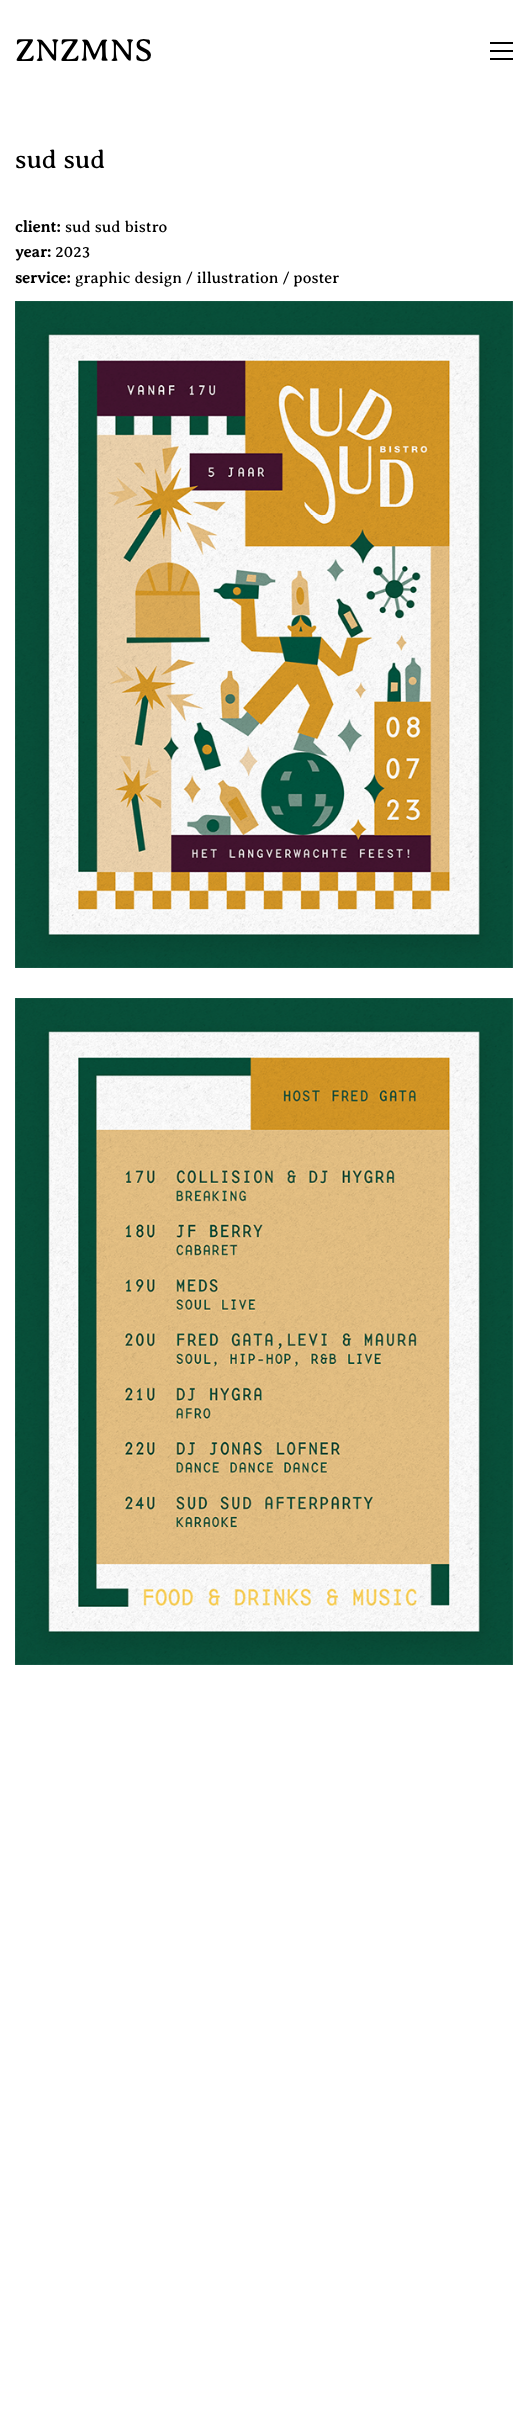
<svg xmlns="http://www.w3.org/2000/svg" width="528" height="2435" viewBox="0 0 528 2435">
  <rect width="100%" height="100%" fill="#fff"/>
  <path d="M490 42h23v2H490z" fill="#000"/>
  <path d="M490 50h23v2H490z" fill="#000"/>
  <path d="M490 58h23v2H490z" fill="#000"/>
  <image x="15" y="301" width="498" height="667" href="img/1.png"/>
  <image x="15" y="998" width="498" height="667" href="img/2.png"/>
  <text x="15" y="61" font-family="Averia Serif Libre" font-size="32" fill="#000">ZNZMNS</text>
  <text x="15" y="168" font-family="Averia Serif Libre" font-size="26" fill="#000">sud sud</text>
  <text x="15" y="232" font-family="Averia Serif Libre" font-size="16" font-weight="bold" fill="#000">client:</text>
  <text x="65" y="232" font-family="Averia Serif Libre" font-size="16" fill="#000">sud sud bistro</text>
  <text x="15" y="257" font-family="Averia Serif Libre" font-size="16" font-weight="bold" fill="#000">year:</text>
  <text x="55" y="257" font-family="Averia Serif Libre" font-size="16" fill="#000">2023</text>
  <text x="15" y="283" font-family="Averia Serif Libre" font-size="16" font-weight="bold" fill="#000">service:</text>
  <text x="75" y="283" font-family="Averia Serif Libre" font-size="16" fill="#000">graphic design / illustration / poster</text>
</svg>
